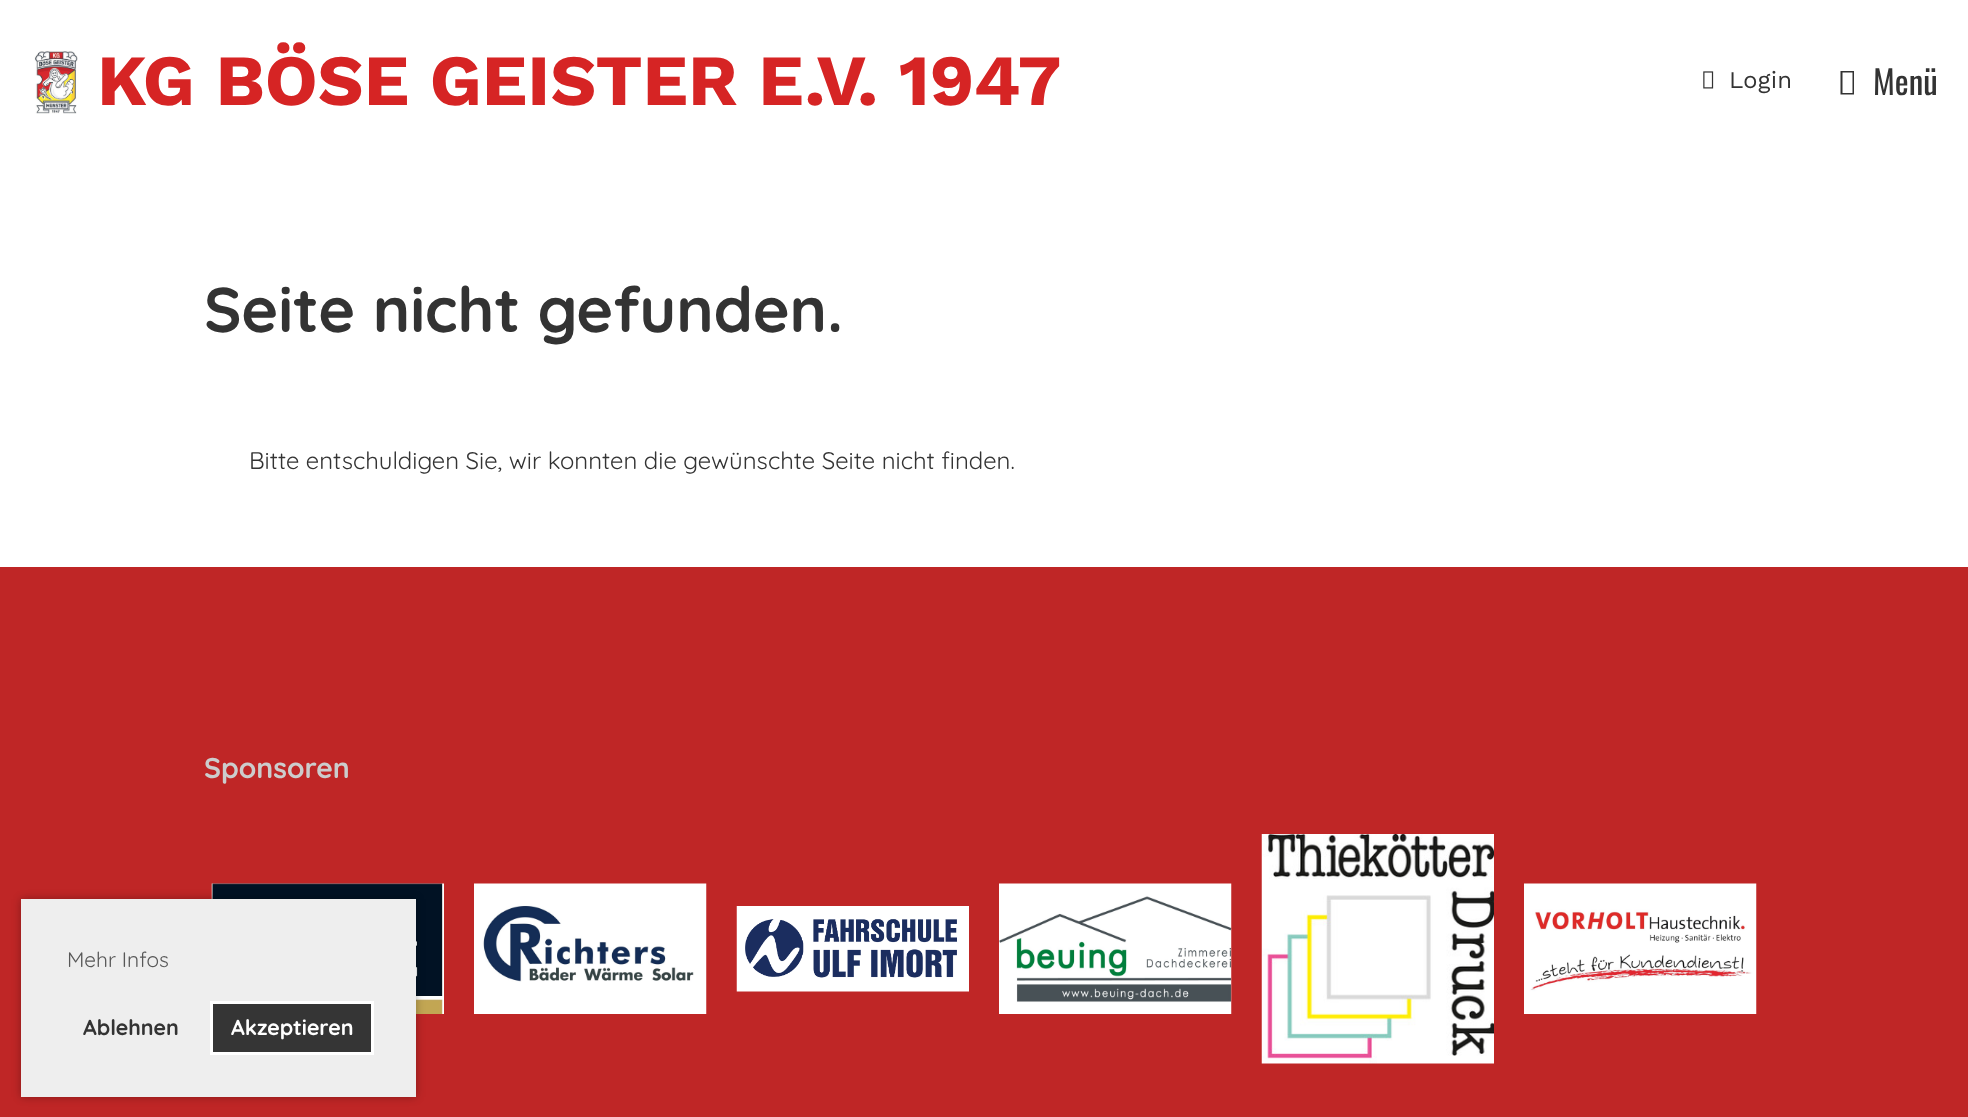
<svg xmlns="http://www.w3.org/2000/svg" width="1968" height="1117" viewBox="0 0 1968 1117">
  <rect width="100%" height="100%" fill="#fff"/>
  <image x="34" y="50" width="44" height="64" href="img/1.png"/>
  <image x="1703" y="71" width="11" height="18" href="img/2.png"/>
  <path d="M1840.5 94.5V71H1854V94.5ZM1842.5 93H1852.5V72.5H1842.5Z" fill="#333"/>
  <path d="M0 567h1968v550H0z" fill="#bf2626"/>
  <image x="211" y="883" width="233" height="131" href="img/3.png"/>
  <image x="474" y="883" width="233" height="131" href="img/4.png"/>
  <image x="736" y="906" width="233" height="86" href="img/5.png"/>
  <image x="999" y="883" width="233" height="131" href="img/6.png"/>
  <image x="1261" y="834" width="233" height="230" href="img/7.png"/>
  <image x="1524" y="883" width="233" height="131" href="img/8.png"/>
  <path d="M21 899h395v198H21z" fill="#0000004d" filter="blur(4px)"/>
  <path d="M21 899h395v198H21z" fill="#eee"/>
  <path d="M211.5 1002.5h161v51H211.5z" fill="#353535" stroke="#fff" stroke-width="3"/>
  <text x="97" y="105" font-family="Work Sans" font-size="72" font-weight="bold" fill="#d62424">KG BÖSE GEISTER E.V. 1947</text>
  <text x="1729" y="88" font-family="Work Sans" font-size="24" fill="#333">Login</text>
  <text x="1873" y="95" font-family="Oswald" font-size="33" fill="#333">Menü</text>
  <text x="204" y="332" font-family="Quicksand" font-size="63" font-weight="300" fill="#333">Seite nicht gefunden.</text>
  <text x="249" y="469" font-family="'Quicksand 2'" font-size="24" font-weight="300" fill="#333">Bitte entschuldigen Sie, wir konnten die gewünschte Seite nicht finden.</text>
  <text x="204" y="778" font-family="Quicksand" font-size="28.5" font-weight="300" fill="#ccc">Sponsoren</text>
  <text x="67" y="967" font-family="'Quicksand 2'" font-size="21" font-weight="300" fill="#585858">Mehr Infos</text>
  <text x="83" y="1035" font-family="Quicksand" font-size="21.5" font-weight="300" fill="#333">Ablehnen</text>
  <text x="231" y="1035" font-family="Quicksand" font-size="21.5" font-weight="300" fill="#fff">Akzeptieren</text>
</svg>
